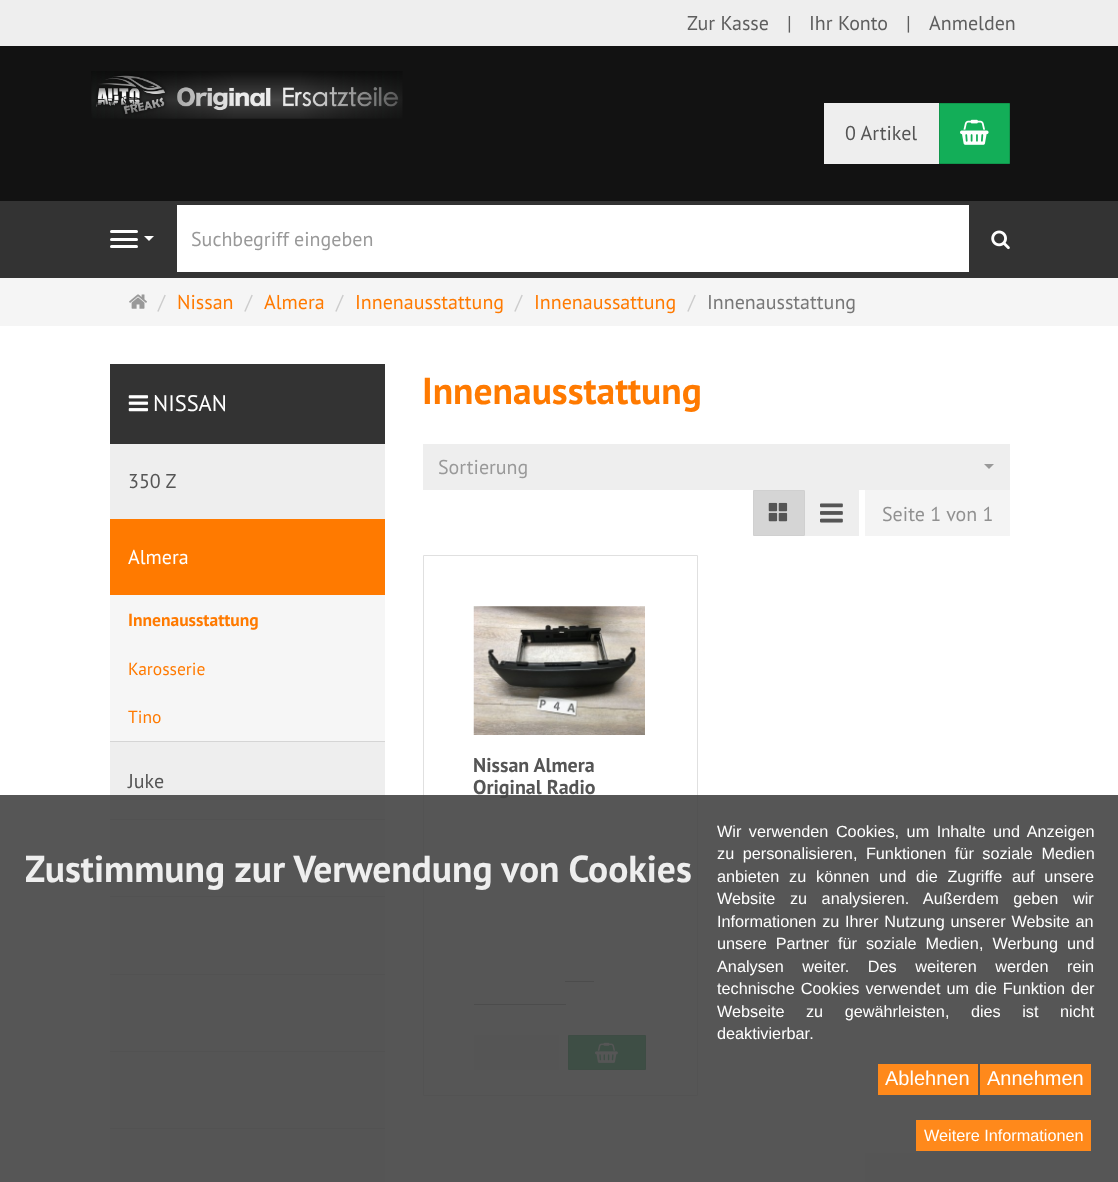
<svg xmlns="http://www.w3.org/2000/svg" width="1118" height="1182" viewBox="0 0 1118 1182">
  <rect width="100%" height="100%" fill="#fff"/>
  <path d="M0 0h1118v46H0z" fill="#eee"/>
  <path d="M0 46h1118v155H0z" fill="#121212"/>
  <image x="91" y="71" width="312" height="48" href="img/1.png"/>
  <path d="M824 103h115v61H824z" fill="#eee"/>
  <path d="M939.5 103.5h70v60H939.5z" fill="#13ae58" stroke="#10974c"/>
  <image x="960" y="119" width="29" height="26" href="img/2.png"/>
  <path d="M0 201h1118v77H0z" fill="#333"/>
  <rect x="110" y="230" width="28" height="3" rx="1.5" fill="#fff"/>
  <rect x="110" y="238" width="28" height="3" rx="1.5" fill="#fff"/>
  <rect x="110" y="245" width="28" height="3" rx="1.5" fill="#fff"/>
  <path d="M144 236H154L149 241Z" fill="#fff"/>
  <path d="M177 205h792v67H177z" fill="#fff"/>
  <image x="991" y="230" width="19" height="20" href="img/3.png"/>
  <path d="M0 278h1118v48H0z" fill="#f5f5f5"/>
  <image x="129" y="294" width="18" height="15" href="img/4.png"/>
  <path d="M110 364h275v80H110z" fill="#333"/>
  <image x="128" y="395" width="21" height="17" href="img/5.png"/>
  <path d="M110 444h275v75H110z" fill="#eee"/>
  <path d="M110 519h275v76H110z" fill="#ff7a00"/>
  <path d="M110 595h275v146H110z" fill="#f6f6f6"/>
  <path d="M110 742h275v77H110z" fill="#eee"/>
  <path d="M110 741h275v1H110z" fill="#d5d5d5"/>
  <path d="M110 820h275v76H110z" fill="#eee"/>
  <path d="M110 819h275v1H110z" fill="#d5d5d5"/>
  <path d="M110 897h275v77H110z" fill="#eee"/>
  <path d="M110 896h275v1H110z" fill="#d5d5d5"/>
  <path d="M110 975h275v76H110z" fill="#eee"/>
  <path d="M110 974h275v1H110z" fill="#d5d5d5"/>
  <path d="M110 1052h275v76H110z" fill="#eee"/>
  <path d="M110 1051h275v1H110z" fill="#d5d5d5"/>
  <path d="M110 1129h275v53H110z" fill="#eee"/>
  <path d="M110 1128h275v1H110z" fill="#d5d5d5"/>
  <path d="M423 444h587v46H423z" fill="#eee"/>
  <path d="M984 464H994L989 469Z" fill="#999"/>
  <path d="M753.5 490.5h51v45H753.5z" fill="#d5d5d5" stroke="#d0d0d0"/>
  <image x="768" y="502" width="20" height="20" href="img/6.png"/>
  <path d="M805 490h54v46H805z" fill="#eee"/>
  <image x="820" y="503" width="23" height="20" href="img/7.png"/>
  <path d="M865 490h145v46H865z" fill="#f4f4f4"/>
  <path d="M423.5 555.5h274v540H423.5z" fill="none" stroke="#e0e0e0"/>
  <image x="473" y="606" width="172" height="129" href="img/8.png"/>
  <path d="M565 981h29v1H565z" fill="#999"/>
  <path d="M474 1004h92v1H474z" fill="#999"/>
  <path d="M474 1035h85v35H474z" fill="#eee"/>
  <path d="M568.5 1035.5h77v34H568.5z" fill="#13ae58" stroke="#10974c"/>
  <image x="595" y="1042" width="23" height="21" href="img/9.png"/>
  <path d="M865 1153h145v29H865z" fill="#f4f4f4"/>
  <g font-family="PT Sans" font-size="20" fill="#5e5e5e">
    <text x="687" y="30">Zur Kasse</text>
    <text x="787" y="30">|</text>
    <text x="809" y="30">Ihr Konto</text>
    <text x="906" y="30">|</text>
    <text x="929" y="30">Anmelden</text>
  </g>
  <text x="845" y="140" font-family="PT Sans" font-size="20" fill="#555">0 Artikel</text>
  <text x="191" y="246" font-family="PT Sans" font-size="20" fill="#999">Suchbegriff eingeben</text>
  <text x="158" y="309" font-family="PT Sans" font-size="20" fill="#ccc">/</text>
  <text x="177" y="309" font-family="PT Sans" font-size="20" fill="#ff7a00">Nissan</text>
  <text x="245" y="309" font-family="PT Sans" font-size="20" fill="#ccc">/</text>
  <text x="264" y="309" font-family="PT Sans" font-size="20" fill="#ff7a00">Almera</text>
  <text x="336" y="309" font-family="PT Sans" font-size="20" fill="#ccc">/</text>
  <text x="355" y="309" font-family="PT Sans" font-size="20" fill="#ff7a00">Innenausstattung</text>
  <text x="515" y="309" font-family="PT Sans" font-size="20" fill="#ccc">/</text>
  <text x="534" y="309" font-family="PT Sans" font-size="20" fill="#ff7a00">Innenaussattung</text>
  <text x="688" y="309" font-family="PT Sans" font-size="20" fill="#ccc">/</text>
  <text x="707" y="309" font-family="PT Sans" font-size="20" fill="#777">Innenausstattung</text>
  <text x="153" y="411" font-family="PT Sans" font-size="22.5" fill="#fff">NISSAN</text>
  <text x="128" y="488" font-family="PT Sans" font-size="20" fill="#555">350 Z</text>
  <text x="128" y="564" font-family="PT Sans" font-size="20" fill="#fff">Almera</text>
  <text x="128" y="626" font-family="PT Sans" font-size="17.5" font-weight="bold" fill="#ff7a00">Innenausstattung</text>
  <g font-family="PT Sans" font-size="17.5" fill="#ff7a00">
    <text x="128" y="675">Karosserie</text>
    <text x="128" y="723">Tino</text>
  </g>
  <text x="128" y="788" font-family="PT Sans" font-size="20" fill="#555">Juke</text>
  <text x="422" y="404" font-family="PT Sans" font-size="37.5" font-weight="bold" fill="#ff7a00">Innenausstattung</text>
  <text x="438" y="474" font-family="PT Sans" font-size="20" fill="#999">Sortierung</text>
  <text x="882" y="521" font-family="PT Sans" font-size="20" fill="#919191">Seite 1 von 1</text>
  <g font-family="PT Sans" font-size="20" font-weight="bold" fill="#555">
    <text x="473" y="772">Nissan Almera</text>
    <text x="473" y="794">Original Radio</text>
  </g>
  <path d="M0 795h1118v387H0z" fill="#444444e6"/>
  <text x="25" y="882" font-family="PT Sans" font-size="37.5" font-weight="bold" fill="#eee">Zustimmung zur Verwendung von Cookies</text>
  <g font-family="Liberation Sans" font-size="16.25" fill="#fff">
    <text x="717" y="837" word-spacing="3">Wir verwenden Cookies, um Inhalte und Anzeigen</text>
    <text x="717" y="859" word-spacing="4">zu personalisieren, Funktionen für soziale Medien</text>
    <text x="717" y="882" word-spacing="5.25">anbieten zu können und die Zugriffe auf unsere</text>
    <text x="717" y="904" word-spacing="10">Website zu analysieren. Außerdem geben wir</text>
    <text x="717" y="927" word-spacing="1.25">Informationen zu Ihrer Nutzung unserer Website an</text>
    <text x="717" y="949" word-spacing="4.5">unsere Partner für soziale Medien, Werbung und</text>
    <text x="717" y="972" word-spacing="14">Analysen weiter. Des weiteren werden rein</text>
    <text x="717" y="994" word-spacing="1.5">technische Cookies verwendet um die Funktion der</text>
    <text x="717" y="1017" word-spacing="17">Webseite zu gewährleisten, dies ist nicht</text>
    <text x="717" y="1039">deaktivierbar.</text>
  </g>
  <path d="M878 1064h100v31H878z" fill="#ff891b"/>
  <text x="885" y="1085" font-family="Liberation Sans" font-size="20" fill="#fff">Ablehnen</text>
  <path d="M980 1064h111v31H980z" fill="#ff891b"/>
  <text x="987" y="1085" font-family="Liberation Sans" font-size="20" fill="#fff">Annehmen</text>
  <path d="M916 1120h175v31H916z" fill="#ff891b"/>
  <text x="924" y="1141" font-family="Liberation Sans" font-size="16.25" fill="#fff">Weitere Informationen</text>
</svg>
